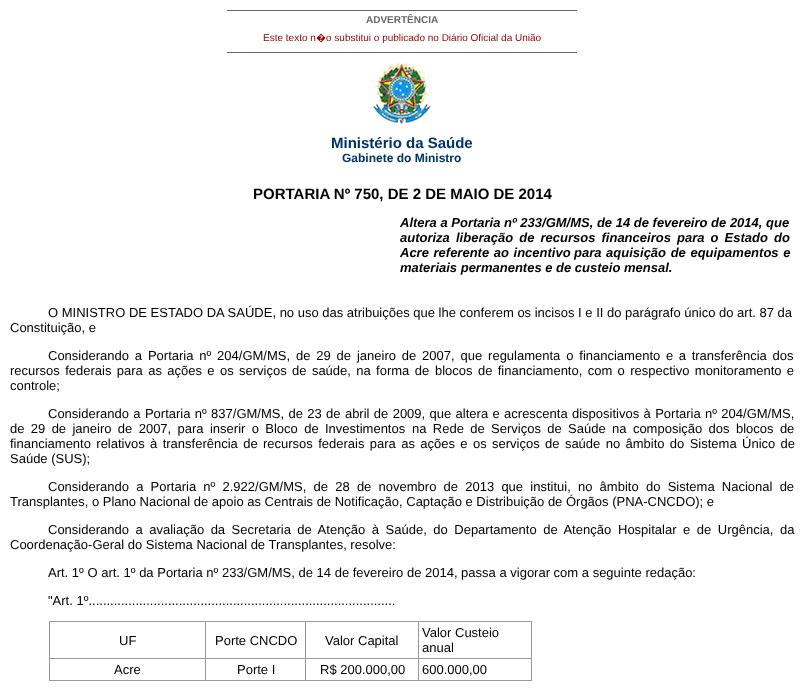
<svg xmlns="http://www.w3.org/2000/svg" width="803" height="691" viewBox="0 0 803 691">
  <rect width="100%" height="100%" fill="#fff"/>
  <path d="M227 10h350v1H227z" fill="#666"/>
  <path d="M227 52h350v1H227z" fill="#666"/>
  <image x="373" y="63" width="58" height="61" href="img/1.png"/>
  <path d="M418 621h114v1H418z" fill="#999"/>
  <path d="M418 658h114v1H418z" fill="#999"/>
  <path d="M531 658h1v23H531z" fill="#999"/>
  <path d="M418 680h114v1H418z" fill="#999"/>
  <path d="M418 658h1v23H418z" fill="#999"/>
  <path d="M305 658h114v1H305z" fill="#999"/>
  <path d="M418 621h1v38H418z" fill="#999"/>
  <path d="M305 621h114v1H305z" fill="#999"/>
  <path d="M305 680h114v1H305z" fill="#999"/>
  <path d="M305 658h1v23H305z" fill="#999"/>
  <path d="M205 658h101v1H205z" fill="#999"/>
  <path d="M305 621h1v38H305z" fill="#999"/>
  <path d="M205 621h101v1H205z" fill="#999"/>
  <path d="M205 680h101v1H205z" fill="#999"/>
  <path d="M205 658h1v23H205z" fill="#999"/>
  <path d="M49 658h157v1H49z" fill="#999"/>
  <path d="M205 621h1v38H205z" fill="#999"/>
  <path d="M49 621h157v1H49z" fill="#999"/>
  <path d="M49 680h157v1H49z" fill="#999"/>
  <path d="M49 658h1v23H49z" fill="#999"/>
  <path d="M49 621h1v38H49z" fill="#999"/>
  <path d="M531 621h1v38H531z" fill="#999"/>
  <text x="366" y="23" font-family="Liberation Sans" font-size="10" font-weight="bold" fill="#666">ADVERTÊNCIA</text>
  <text x="263" y="41" font-family="Liberation Sans" font-size="10" fill="#900">Este texto n</text>
  <text x="316" y="41" font-family="Noto Sans" font-size="10" fill="#900">�</text>
  <text x="326" y="41" font-family="Liberation Sans" font-size="10" fill="#900">o substitui o publicado no Diário Oficial da União</text>
  <text x="331" y="148" font-family="Liberation Sans" font-size="15" font-weight="bold" fill="#036">Ministério da Saúde</text>
  <text x="342" y="162" font-family="Liberation Sans" font-size="12" font-weight="bold" fill="#036">Gabinete do Ministro</text>
  <text x="253" y="199" font-family="Liberation Sans" font-size="15" font-weight="bold" fill="#000">PORTARIA Nº 750, DE 2 DE MAIO DE 2014</text>
  <g font-family="Liberation Sans" font-size="13" font-weight="bold" font-style="italic" fill="#000">
    <text x="400" y="227">Altera a Portaria nº 233/GM/MS, de 14 de fevereiro de 2014, que</text>
    <text x="400" y="242">autoriza</text>
    <text x="456" y="242" word-spacing="2.5">liberação de recursos financeiros para o Estado do</text>
    <text x="400" y="257" word-spacing="1">Acre referente ao incentivo</text>
    <text x="574" y="257" word-spacing="1">para aquisição de equipamentos e</text>
    <text x="400" y="272">materiais permanentes e de custeio mensal.</text>
  </g>
  <g font-family="Liberation Sans" font-size="13" fill="#000">
    <text x="48" y="317">O MINISTRO DE ESTADO DA SAÚDE, no uso das atribuições que lhe conferem os incisos I e II do parágrafo único do art. 87 da</text>
    <text x="10" y="332">Constituição, e</text>
    <text x="48" y="360" word-spacing="2.25">Considerando a Portaria nº 204/GM/MS, de 29 de janeiro de 2007, que regulamenta o financiamento</text>
    <text x="666" y="360" word-spacing="2">e a transferência dos</text>
    <text x="10" y="375" word-spacing="1.75">recursos federais para as ações e os serviços de saúde, na forma de</text>
    <text x="435" y="375" word-spacing="1.75">blocos de financiamento, com o respectivo monitoramento e</text>
    <text x="10" y="390">controle;</text>
    <text x="48" y="418" word-spacing="0.75">Considerando a Portaria nº 837/GM/MS, de 23 de abril de 2009, que altera e acrescenta</text>
    <text x="572" y="418" word-spacing="0.75">dispositivos à Portaria nº 204/GM/MS,</text>
    <text x="10" y="433" word-spacing="2.75">de 29 de janeiro de 2007, para inserir o Bloco de Investimentos</text>
    <text x="412" y="433" word-spacing="2.75">na Rede de Serviços de Saúde na composição dos blocos de</text>
    <text x="10" y="448" word-spacing="1.75">financiamento relativos à transferência de</text>
    <text x="263" y="448" word-spacing="1.75">recursos federais para as ações e os serviços de saúde no âmbito do Sistema Único de</text>
    <text x="10" y="463">Saúde (SUS);</text>
    <text x="48" y="491" word-spacing="3.6">Considerando a Portaria nº 2.922/GM/MS, de 28 de novembro de 2013 que institui, no âmbito</text>
    <text x="646" y="491" word-spacing="3.6">do Sistema Nacional de</text>
    <text x="10" y="506">Transplantes, o Plano Nacional de apoio as Centrais de Notificação, Captação e Distribuição de Órgãos (PNA-CNCDO); e</text>
    <text x="48" y="534" word-spacing="2.9">Considerando a avaliação da Secretaria de Atenção à Saúde, do Departamento de Atenção</text>
    <text x="618" y="534" word-spacing="2.9">Hospitalar e de Urgência, da</text>
    <text x="10" y="549">Coordenação-Geral do Sistema Nacional de Transplantes, resolve:</text>
    <text x="48" y="577">Art. 1º O art. 1º da Portaria nº 233/GM/MS, de 14 de fevereiro de 2014, passa a vigorar com a seguinte redação:</text>
    <text x="48" y="605">"Art. 1º.....................................................................................</text>
    <text x="119" y="645">UF</text>
    <text x="215" y="645">Porte CNCDO</text>
    <text x="325" y="645">Valor Capital</text>
    <text x="422" y="637">Valor Custeio</text>
    <text x="422" y="652">anual</text>
    <text x="114" y="674">Acre</text>
    <text x="237" y="674">Porte I</text>
    <text x="320" y="674">R$ 200.000,00</text>
    <text x="422" y="674">600.000,00</text>
  </g>
</svg>
